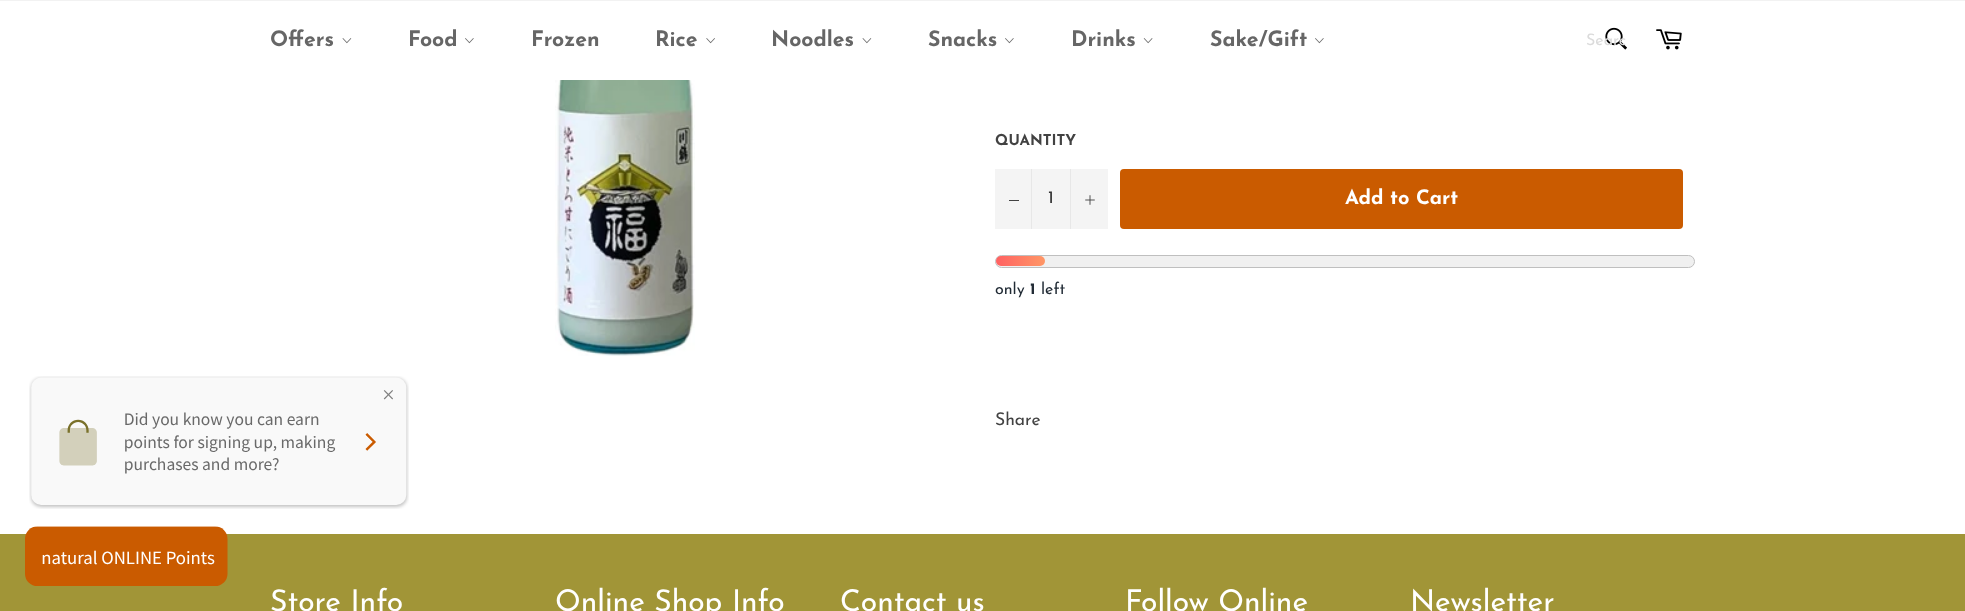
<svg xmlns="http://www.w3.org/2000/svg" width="1965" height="611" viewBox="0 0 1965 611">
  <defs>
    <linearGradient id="g1" gradientUnits="userSpaceOnUse" x1="996" y1="261" x2="1045" y2="261"><stop offset="0" stop-color="#ff6162"/><stop offset="1" stop-color="#ff9766"/></linearGradient>
  </defs>
  <rect width="100%" height="100%" fill="#fff"/>
  <path d="M0 0h1965v1H0z" fill="#f2f2f2"/>
  <image x="342" y="38" width="10" height="6" href="img/1.png"/>
  <image x="465" y="38" width="9" height="6" href="img/2.png"/>
  <image x="706" y="38" width="9" height="6" href="img/3.png"/>
  <image x="862" y="38" width="10" height="6" href="img/1.png"/>
  <image x="1005" y="38" width="9" height="6" href="img/2.png"/>
  <image x="1143" y="38" width="10" height="6" href="img/4.png"/>
  <image x="1315" y="38" width="9" height="6" href="img/2.png"/>
  <image x="1605" y="27" width="22" height="23" href="img/5.png"/>
  <image x="1656" y="29" width="26" height="21" href="img/6.png"/>
  <image x="29" y="376" width="380" height="133" href="img/7.png"/>
  <image x="555" y="80" width="140" height="276" href="img/8.png"/>
  <path d="M995 169h113v60H995z" fill="#f4f4f4"/>
  <path d="M1031 169h1v60H1031z" fill="#e7e7e7"/>
  <path d="M1009 200h10v1H1009z" fill="#424242"/>
  <path d="M1070 169h1v60H1070z" fill="#e7e7e7"/>
  <image x="1085" y="195" width="10" height="10" href="img/9.png"/>
  <rect x="1120" y="169" width="563" height="60" rx="4" fill="#ca5b00"/>
  <rect x="995.5" y="255.5" width="699" height="12" rx="6" fill="#f0f0f0" stroke="#bfbfbf"/>
  <rect x="996" y="256" width="49" height="10" rx="5" fill="url(#g1)"/>
  <path d="M0 534h1965v77H0z" fill="#a19537"/>
  <image x="25" y="526" width="203" height="60" href="img/10.png"/>
  <g font-family="Josefin Sans" font-size="21.25" font-weight="bold" fill="#666">
    <text x="270" y="46">Offers</text>
    <text x="408" y="46">Food</text>
    <text x="531" y="46">Frozen</text>
    <text x="655" y="46">Rice</text>
    <text x="771" y="46">Noodles</text>
    <text x="928" y="46">Snacks</text>
    <text x="1071" y="46">Drinks</text>
    <text x="1210" y="46">Sake/Gift</text>
  </g>
  <text x="1586" y="45" font-family="Josefin Sans" font-size="16" font-weight="100" fill="#dbdbdb">Searc</text>
  <text x="995" y="145" font-family="Josefin Sans" font-size="15" font-weight="bold" fill="#424242">QUANTITY</text>
  <text x="1048" y="203" font-family="Josefin Sans" font-size="17.5" font-weight="100" fill="#333">1</text>
  <text x="1345" y="204" font-family="Josefin Sans" font-size="20" font-weight="bold" fill="#fff">Add to Cart</text>
  <text x="995" y="294" font-family="Josefin Sans" font-size="16" font-weight="100" fill="#212b35">only</text>
  <text x="1030" y="294" font-family="Josefin Sans" font-size="16" font-weight="bold" fill="#212b35">1</text>
  <text x="1041" y="294" font-family="Josefin Sans" font-size="16" font-weight="100" fill="#212b35">left</text>
  <text x="995" y="425" font-family="Josefin Sans" font-size="17.5" font-weight="100" fill="#424242">Share</text>
  <g font-family="Josefin Sans" font-size="30" font-weight="100" fill="#fff">
    <text x="270" y="611">Store Info</text>
    <text x="555" y="611">Online Shop Info</text>
    <text x="840" y="611">Contact us</text>
    <text x="1125" y="611">Follow Online</text>
    <text x="1410" y="611">Newsletter</text>
  </g>
</svg>
